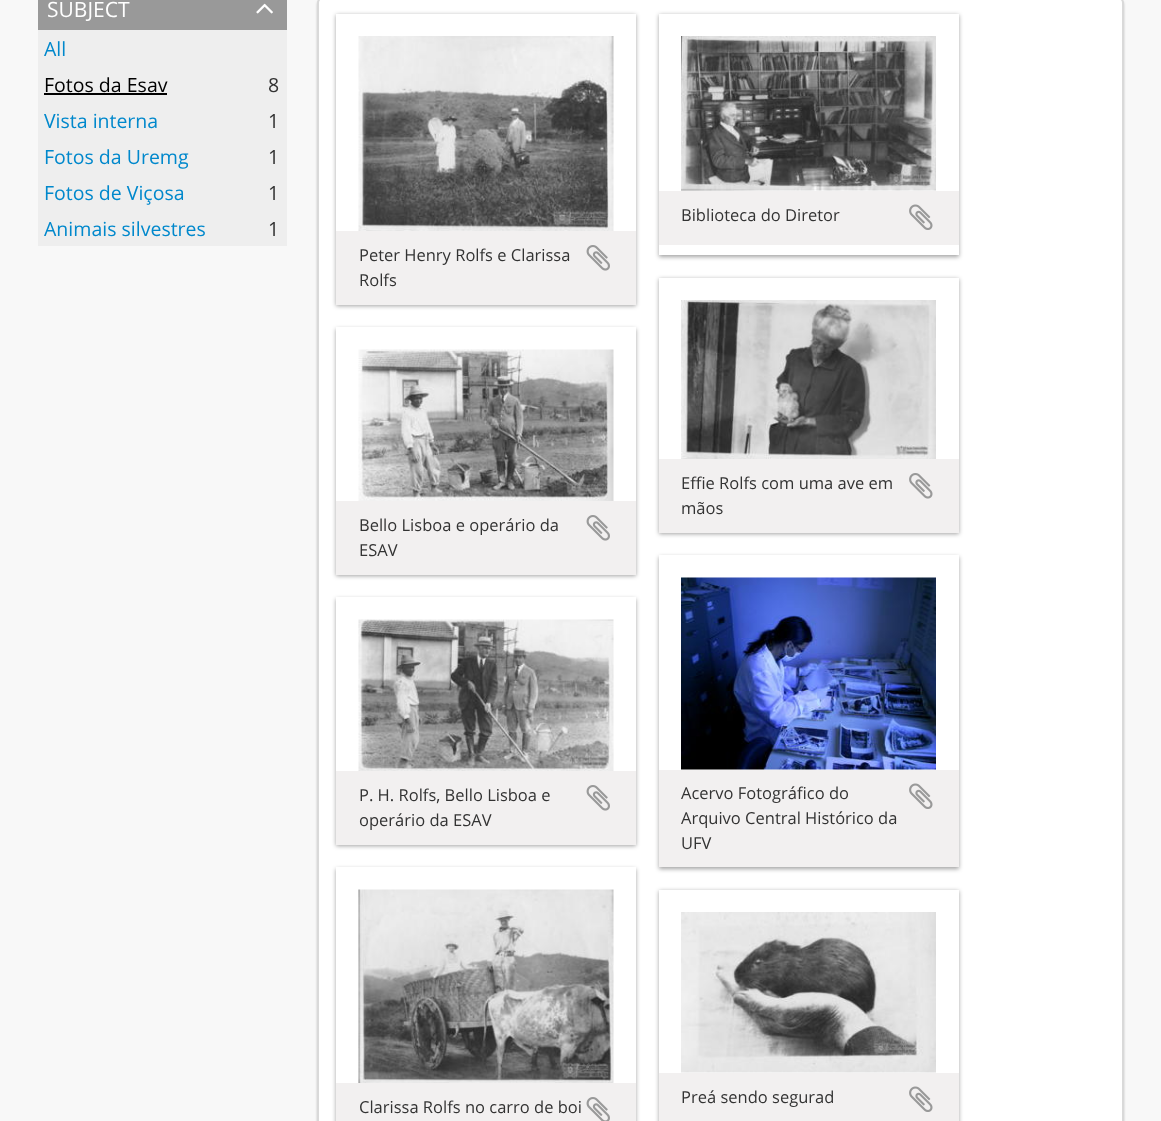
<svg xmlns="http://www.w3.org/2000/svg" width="1161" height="1121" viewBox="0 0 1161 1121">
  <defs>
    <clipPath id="clip1"><path d="M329 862H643V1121H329ZM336 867H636V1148H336Z" clip-rule="evenodd"/></clipPath>
  </defs>
  <rect width="100%" height="100%" fill="#f8f8f8"/>
  <path d="M38 0h249v30H38z" fill="#999"/>
  <image x="256" y="3" width="17" height="11" href="img/1.png"/>
  <path d="M38 30h249v216H38z" fill="#eee"/>
  <path d="M44 93h123v2H44z" fill="#000"/>
  <rect x="317" y="-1" width="807" height="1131" rx="6" fill="#00000033" filter="blur(1px)"/>
  <rect x="318" y="-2" width="805" height="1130" rx="5" fill="#fff" stroke="#d9d9d9" stroke-width="2"/>
  <path d="M659 15h300v242H659z" fill="#19191966" filter="blur(2px)"/>
  <path d="M659 14h300v241H659z" fill="#fff"/>
  <image x="681" y="36" width="255" height="155" href="img/2.png"/>
  <path d="M659 191h300v54H659z" fill="#f2f0f0"/>
  <image x="909" y="204" width="24" height="26" href="img/3.png"/>
  <path d="M336 15h300v291H336z" fill="#19191966" filter="blur(2px)"/>
  <path d="M336 14h300v217H336z" fill="#fff"/>
  <image x="358" y="36" width="256" height="195" href="img/4.png"/>
  <path d="M336 231h300v74H336z" fill="#f2f0f0"/>
  <image x="586" y="245" width="24" height="26" href="img/5.png"/>
  <path d="M659 279h300v255H659z" fill="#19191966" filter="blur(2px)"/>
  <path d="M659 278h300v181H659z" fill="#fff"/>
  <image x="681" y="300" width="255" height="159" href="img/6.png"/>
  <path d="M659 459h300v74H659z" fill="#f2f0f0"/>
  <image x="909" y="473" width="24" height="26" href="img/7.png"/>
  <path d="M336 329h300v247H336z" fill="#19191966" filter="blur(2px)"/>
  <path d="M336 327h300v174H336z" fill="#fff"/>
  <image x="358" y="349" width="256" height="152" href="img/8.png"/>
  <path d="M336 501h300v74H336z" fill="#f2f0f0"/>
  <image x="586" y="515" width="24" height="26" href="img/5.png"/>
  <path d="M336 599h300v247H336z" fill="#19191966" filter="blur(2px)"/>
  <path d="M336 597h300v174H336z" fill="#fff"/>
  <image x="358" y="619" width="256" height="152" href="img/9.png"/>
  <path d="M336 771h300v74H336z" fill="#f2f0f0"/>
  <image x="586" y="785" width="24" height="26" href="img/5.png"/>
  <path d="M659 557h300v312H659z" fill="#19191966" filter="blur(2px)"/>
  <path d="M659 555h300v215H659z" fill="#fff"/>
  <image x="681" y="577" width="255" height="193" href="img/10.png"/>
  <path d="M659 770h300v97H659z" fill="#f2f0f0"/>
  <image x="909" y="783" width="24" height="26" href="img/3.png"/>
  <g clip-path="url(#clip1)">
    <path d="M336 869h300v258H336z" fill="#19191966" filter="blur(2px)"/>
  </g>
  <image x="358" y="889" width="256" height="194" href="img/11.png"/>
  <path d="M336 1083h300v38H336z" fill="#f2f0f0"/>
  <image x="586" y="1097" width="24" height="24" href="img/12.png"/>
  <path d="M659 891h300v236H659z" fill="#19191966" filter="blur(2px)"/>
  <path d="M659 890h300v183H659z" fill="#fff"/>
  <image x="681" y="912" width="255" height="161" href="img/13.png"/>
  <path d="M659 1073h300v48H659z" fill="#f2f0f0"/>
  <image x="909" y="1086" width="24" height="26" href="img/3.png"/>
  <text x="47" y="17" font-family="Open Sans" font-size="21" fill="#fff">SUBJECT</text>
  <text x="44" y="56" font-family="Open Sans" font-size="19.5" fill="#08c">All</text>
  <text x="44" y="92" font-family="Open Sans" font-size="19.5" fill="#000">Fotos da Esav</text>
  <text x="268" y="92" font-family="Open Sans" font-size="19.5" fill="#333">8</text>
  <text x="44" y="128" font-family="Open Sans" font-size="19.5" fill="#08c">Vista interna</text>
  <text x="268" y="128" font-family="Open Sans" font-size="19.5" fill="#333">1</text>
  <text x="44" y="164" font-family="Open Sans" font-size="19.5" fill="#08c">Fotos da Uremg</text>
  <text x="268" y="164" font-family="Open Sans" font-size="19.5" fill="#333">1</text>
  <text x="44" y="200" font-family="Open Sans" font-size="19.5" fill="#08c">Fotos de Viçosa</text>
  <text x="268" y="200" font-family="Open Sans" font-size="19.5" fill="#333">1</text>
  <text x="44" y="236" font-family="Open Sans" font-size="19.5" fill="#08c">Animais silvestres</text>
  <text x="268" y="236" font-family="Open Sans" font-size="19.5" fill="#333">1</text>
  <g font-family="Open Sans" font-size="16.5" fill="#333">
    <text x="681" y="221">Biblioteca do Diretor</text>
    <text x="359" y="261">Peter Henry Rolfs e Clarissa</text>
    <text x="359" y="286">Rolfs</text>
    <text x="681" y="489">Effie Rolfs com uma ave em</text>
    <text x="681" y="514">mãos</text>
    <text x="359" y="531">Bello Lisboa e operário da</text>
    <text x="359" y="556">ESAV</text>
    <text x="359" y="801">P. H. Rolfs, Bello Lisboa e</text>
    <text x="359" y="826">operário da ESAV</text>
    <text x="681" y="799">Acervo Fotográfico do</text>
    <text x="681" y="824">Arquivo Central Histórico da</text>
    <text x="681" y="849">UFV</text>
    <text x="359" y="1113">Clarissa Rolfs no carro de boi</text>
    <text x="681" y="1103">Preá sendo segurad</text>
  </g>
</svg>
